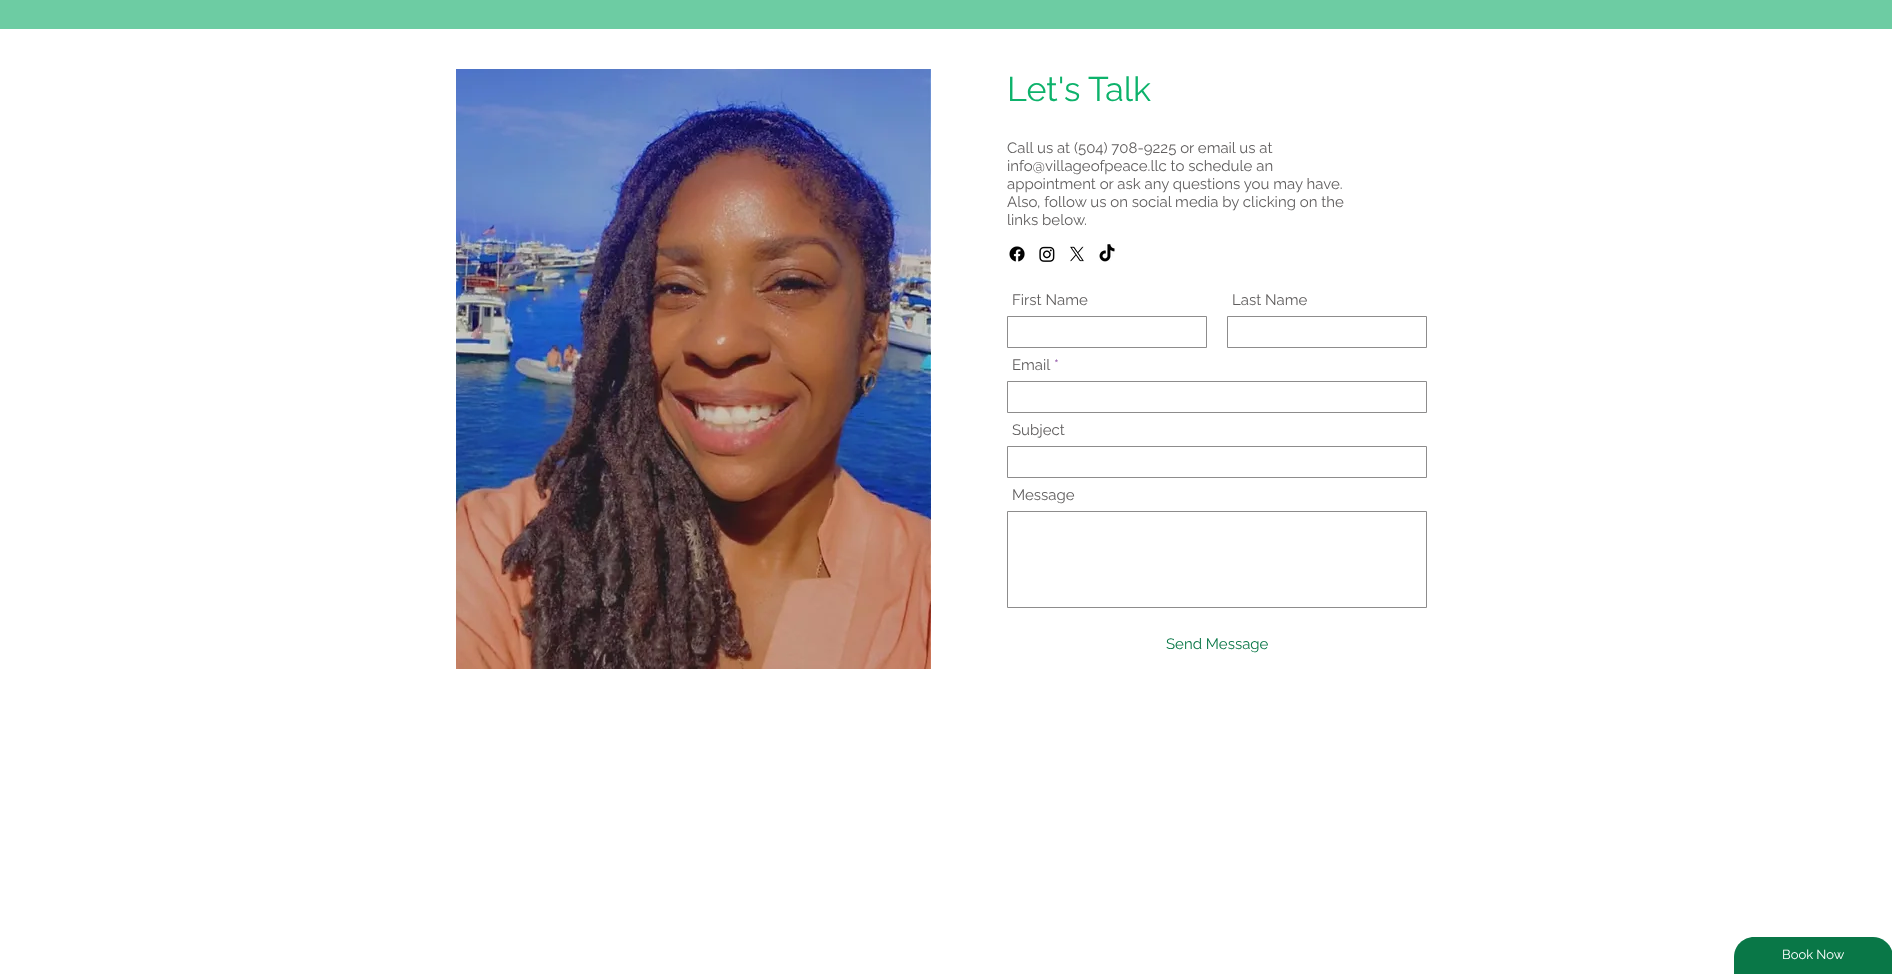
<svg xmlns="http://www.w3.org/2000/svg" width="1892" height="974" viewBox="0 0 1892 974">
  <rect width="100%" height="100%" fill="#fff"/>
  <path d="M0 0h1892v29H0z" fill="#6dcca3"/>
  <image x="456" y="69" width="475" height="600" href="img/1.png"/>
  <image x="1009" y="246" width="16" height="16" href="img/2.png"/>
  <image x="1039" y="246" width="16" height="16" href="img/3.png"/>
  <image x="1070" y="246" width="14" height="16" href="img/4.png"/>
  <image x="1099" y="244" width="16" height="18" href="img/5.png"/>
  <path d="M1007.5 316.5h199v31H1007.5z" fill="none" stroke="#8d8c8c"/>
  <path d="M1227.5 316.5h199v31H1227.5z" fill="none" stroke="#8d8c8c"/>
  <path d="M1007.5 381.5h419v31H1007.5z" fill="none" stroke="#8d8c8c"/>
  <path d="M1007.5 446.5h419v31H1007.5z" fill="none" stroke="#8d8c8c"/>
  <path d="M1007.5 511.5h419v96H1007.5z" fill="none" stroke="#8d8c8c"/>
  <path d="M1754 937H1873C1884 937 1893 946 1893 957V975H1734V957C1734 946 1743 937 1754 937Z" fill="#097747"/>
  <text x="1007" y="101" font-family="Raleway" font-size="34" fill="#0db26b">Let's Talk</text>
  <g font-family="Raleway" font-size="15" fill="#605e5e">
    <text x="1007" y="153">Call us at (504) 708-9225 or email us at</text>
    <text x="1007" y="171">info@villageofpeace.llc to schedule an</text>
    <text x="1007" y="189">appointment or ask any questions you may have.</text>
    <text x="1007" y="207">Also, follow us on social media by clicking on the</text>
    <text x="1007" y="225">links below.</text>
    <text x="1012" y="305">First Name</text>
    <text x="1232" y="305">Last Name</text>
    <text x="1012" y="370">Email</text>
  </g>
  <text x="1054" y="370" font-family="Raleway" font-size="15" fill="#9155a7">*</text>
  <g font-family="Raleway" font-size="15" fill="#605e5e">
    <text x="1012" y="435">Subject</text>
    <text x="1012" y="500">Message</text>
  </g>
  <text x="1166" y="649" font-family="Raleway" font-size="15" fill="#097747">Send Message</text>
  <text x="1782" y="959" font-family="Raleway" font-size="13" fill="#fff">Book Now</text>
</svg>
